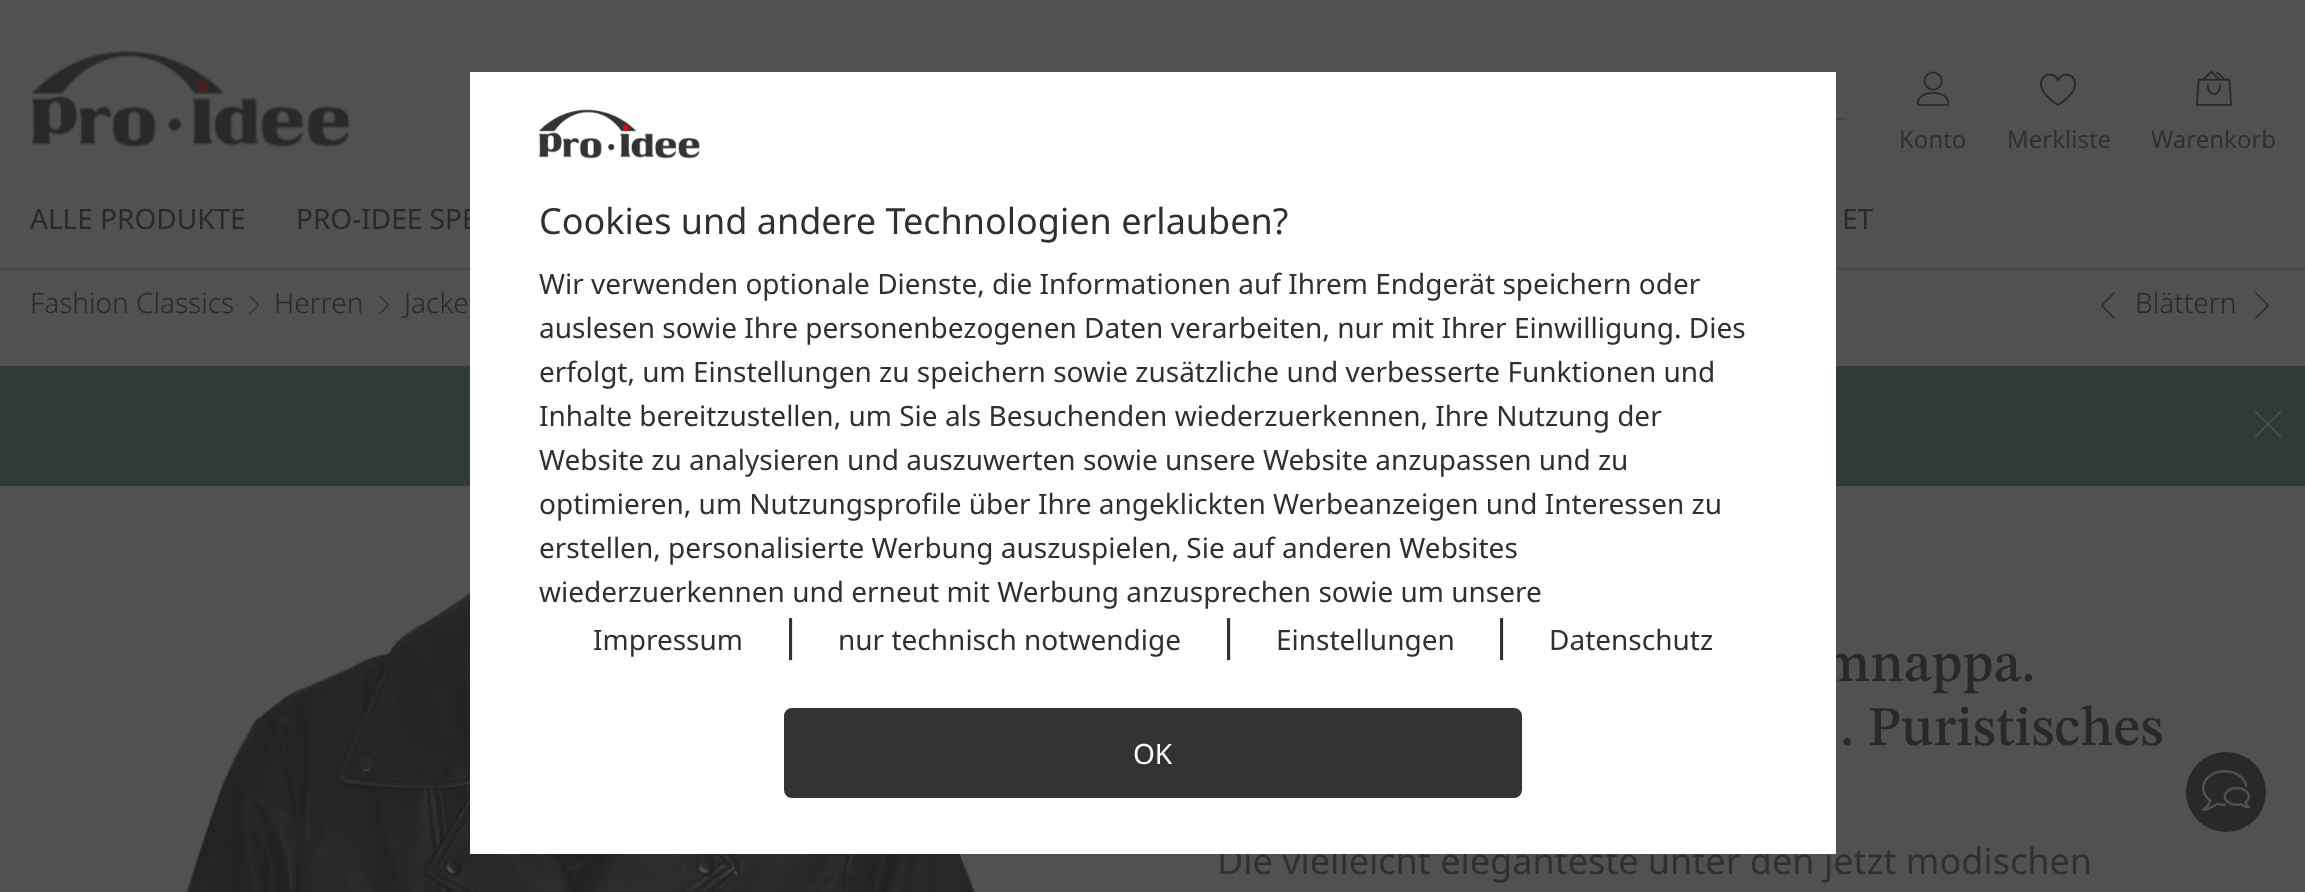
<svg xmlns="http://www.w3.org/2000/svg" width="2305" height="892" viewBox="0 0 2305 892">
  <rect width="100%" height="100%" fill="#515151"/>
  <path d="M0 268h2305v2H0z" fill="#474747"/>
  <image x="31" y="50" width="319" height="98" href="img/1.png"/>
  <path d="M1836 118h10v2H1836z" fill="#474747"/>
  <image x="1916" y="71" width="34" height="35" href="img/2.png"/>
  <image x="2040" y="73" width="36" height="33" href="img/3.png"/>
  <image x="2196" y="70" width="36" height="36" href="img/4.png"/>
  <image x="249" y="295" width="10" height="20" href="img/5.png"/>
  <image x="379" y="295" width="10" height="20" href="img/5.png"/>
  <image x="2101" y="292" width="14" height="27" href="img/6.png"/>
  <image x="2255" y="292" width="14" height="27" href="img/7.png"/>
  <path d="M0 366h2305v120H0z" fill="#2f3b34"/>
  <image x="183" y="579" width="796" height="313" href="img/8.png"/>
  <circle cx="2226" cy="792" r="40" fill="#292929"/>
  <g font-family="Noto Sans" font-size="24" fill="#303030">
    <text x="1899" y="148">Konto</text>
    <text x="2007" y="148">Merkliste</text>
    <text x="2151" y="148">Warenkorb</text>
  </g>
  <g font-family="Noto Sans" font-size="28" fill="#292929">
    <text x="30" y="229">ALLE PRODUKTE</text>
    <text x="296" y="229">PRO-IDEE SPE</text>
    <text x="1842" y="229">ET</text>
  </g>
  <g font-family="Noto Sans" font-size="28" font-weight="300" fill="#292929">
    <text x="30" y="313">Fashion Classics</text>
    <text x="274" y="313">Herren</text>
    <text x="404" y="313">Jacke</text>
    <text x="2135" y="313">Blättern</text>
  </g>
  <text x="2254" y="436" font-family="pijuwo" font-size="28" fill="#515151">&lt;</text>
  <g font-family="STIX Two Text" font-size="56" font-weight="500" fill="#292929">
    <text x="1821" y="681">mnappa.</text>
    <text x="1840" y="745">. Puristisches</text>
  </g>
  <text x="1217" y="874" font-family="Noto Sans" font-size="36" fill="#303030">Die vielleicht eleganteste unter den jetzt modischen</text>
  <text x="2202" y="812" font-family="pijuwo" font-size="48" fill="#515151">3</text>
  <path d="M470 72h1366v782H470z" fill="#fff"/>
  <image x="538" y="109" width="162" height="50" href="img/9.png"/>
  <text x="539" y="234" font-family="Noto Sans" font-size="36" fill="#303030">Cookies und andere Technologien erlauben?</text>
  <g font-family="Noto Sans" font-size="28" fill="#303030">
    <text x="539" y="294">Wir verwenden optionale Dienste, die Informationen auf Ihrem Endgerät speichern oder</text>
    <text x="539" y="338">auslesen sowie Ihre personenbezogenen Daten verarbeiten, nur mit Ihrer Einwilligung. Dies</text>
    <text x="539" y="382">erfolgt, um Einstellungen zu speichern sowie zusätzliche und verbesserte Funktionen und</text>
    <text x="539" y="426">Inhalte bereitzustellen, um Sie als Besuchenden wiederzuerkennen, Ihre Nutzung der</text>
    <text x="539" y="470">Website zu analysieren und auszuwerten sowie unsere Website anzupassen und zu</text>
    <text x="539" y="514">optimieren, um Nutzungsprofile über Ihre angeklickten Werbeanzeigen und Interessen zu</text>
    <text x="539" y="558">erstellen, personalisierte Werbung auszuspielen, Sie auf anderen Websites</text>
    <text x="539" y="602">wiederzuerkennen und erneut mit Werbung anzusprechen sowie um unsere</text>
    <text x="593" y="650">Impressum</text>
  </g>
  <text x="779" y="650" font-family="Noto Sans" font-size="42" fill="#303030">|</text>
  <text x="838" y="650" font-family="Noto Sans" font-size="28" fill="#303030">nur technisch notwendige</text>
  <text x="1217" y="650" font-family="Noto Sans" font-size="42" fill="#303030">|</text>
  <text x="1276" y="650" font-family="Noto Sans" font-size="28" fill="#303030">Einstellungen</text>
  <text x="1490" y="650" font-family="Noto Sans" font-size="42" fill="#303030">|</text>
  <text x="1549" y="650" font-family="Noto Sans" font-size="28" fill="#303030">Datenschutz</text>
  <rect x="786" y="710" width="734" height="86" rx="6" fill="#333" stroke="#333" stroke-width="4"/>
  <text x="1133" y="764" font-family="Noto Sans" font-size="28" fill="#fff">OK</text>
</svg>
